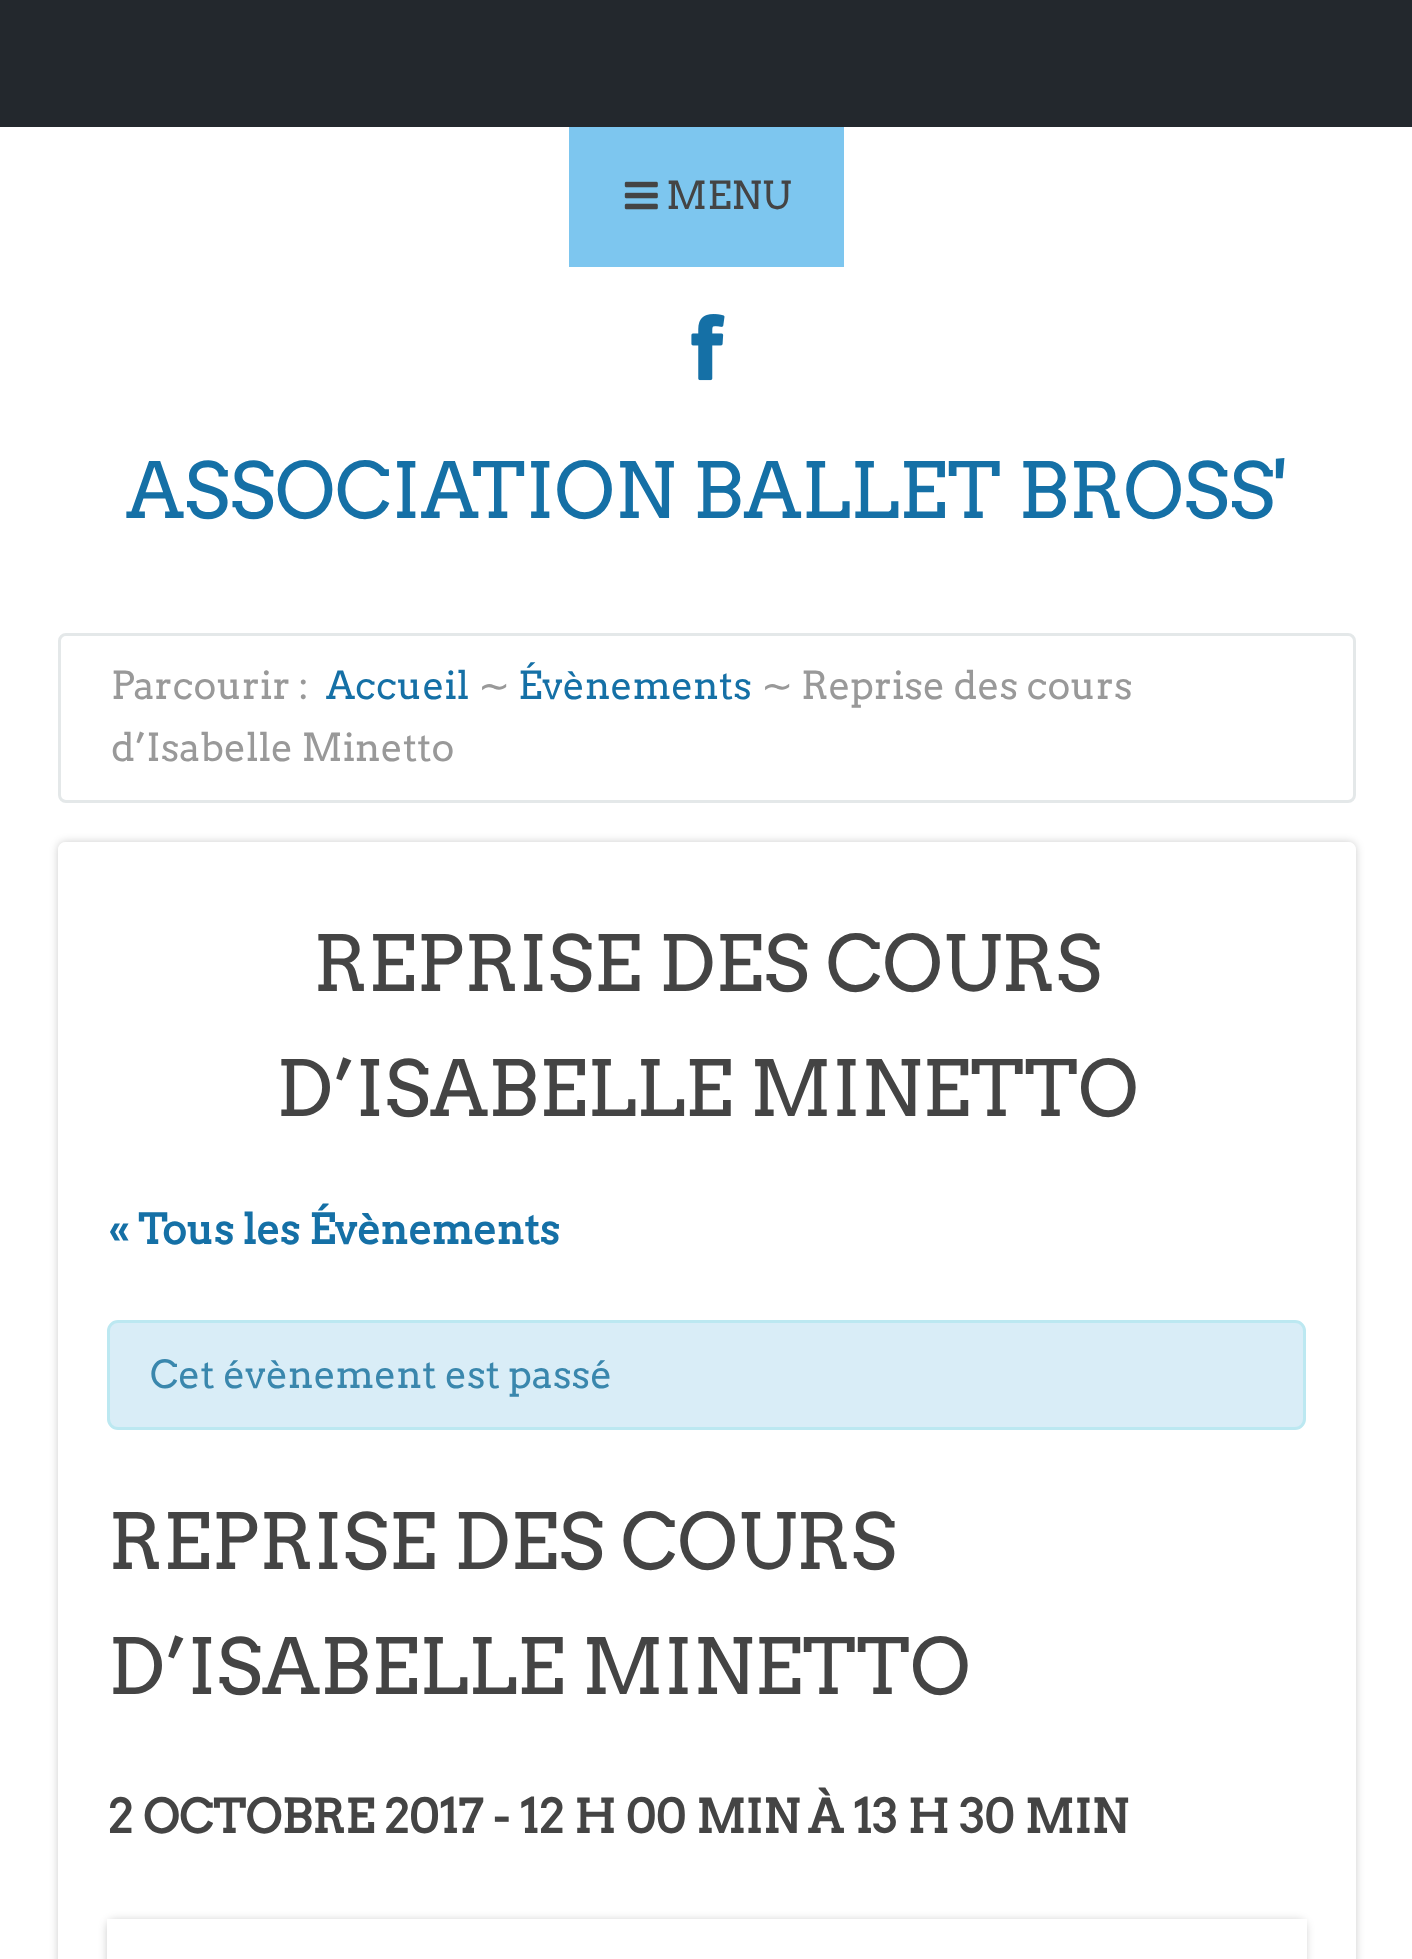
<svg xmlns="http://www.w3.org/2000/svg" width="1412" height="1959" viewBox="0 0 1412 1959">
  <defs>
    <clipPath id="clip1"><path d="M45 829H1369V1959H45ZM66 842H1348C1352.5 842 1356 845.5 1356 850V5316C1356 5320.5 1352.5 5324 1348 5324H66C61.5 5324 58 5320.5 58 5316V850C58 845.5 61.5 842 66 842Z" clip-rule="evenodd"/></clipPath>
  </defs>
  <rect width="100%" height="100%" fill="#fff"/>
  <path d="M0 0h1412v127H0z" fill="#23282d"/>
  <path d="M569 127h275v140H569z" fill="#7dc6ef"/>
  <image x="624" y="181" width="34" height="29" href="img/1.png"/>
  <image x="691" y="314" width="34" height="67" href="img/2.png"/>
  <rect x="59.5" y="634.5" width="1295" height="167" rx="6.5" fill="none" stroke="#e4e8e9" stroke-width="3"/>
  <g clip-path="url(#clip1)">
    <rect x="58" y="842" width="1298" height="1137" rx="8" fill="#00000033" filter="blur(4px)"/>
  </g>
  <rect x="58" y="842" width="1298" height="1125" rx="8" fill="#ffffffcc"/>
  <rect x="108.5" y="1321.5" width="1196" height="107" rx="9.5" fill="#d9edf7" stroke="#bce8f1" stroke-width="3"/>
  <rect x="107" y="1920" width="1199" height="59" rx="8" fill="#00000033" filter="blur(4px)"/>
  <path d="M107 1919h1200v40H107z" fill="#fff"/>
  <text x="666" y="209" font-family="Arvo" font-size="38.5" fill="#444">MENU</text>
  <text x="126" y="518" font-family="Arvo" font-size="77" fill="#1570a6">ASSOCIATION BALLET BROSS'</text>
  <text x="111" y="699" font-family="Arvo" font-size="38.5" fill="#999">Parcourir :</text>
  <text x="326" y="699" font-family="Arvo" font-size="38.5" fill="#1570a6">Accueil</text>
  <text x="478" y="699" font-family="DejaVu Sans" font-size="38.5" fill="#999">∼</text>
  <text x="518" y="699" font-family="Arvo" font-size="38.5" fill="#1570a6">Évènements</text>
  <text x="761" y="699" font-family="DejaVu Sans" font-size="38.5" fill="#999">∼</text>
  <g font-family="Arvo" font-size="38.5" fill="#999">
    <text x="801" y="699">Reprise des cours</text>
    <text x="111" y="761">d’Isabelle Minetto</text>
  </g>
  <g font-family="Arvo" font-size="77" fill="#444">
    <text x="313" y="991">REPRISE DES COURS</text>
    <text x="276" y="1116">D’ISABELLE MINETTO</text>
  </g>
  <text x="108" y="1244" font-family="Arvo" font-size="41.25" font-weight="bold" fill="#1570a6">« Tous les Évènements</text>
  <text x="150" y="1388" font-family="Arvo" font-size="38.5" fill="#3a87ad">Cet évènement est passé</text>
  <g font-family="Arvo" font-size="77" fill="#444">
    <text x="108" y="1569">REPRISE DES COURS</text>
    <text x="108" y="1694">D’ISABELLE MINETTO</text>
  </g>
  <g font-family="Arvo" font-size="46.25" font-weight="bold" fill="#444">
    <text x="108" y="1833">2 OCTOBRE 2017 - 12 H 00 MIN</text>
    <text x="808" y="1833">À 13 H 30 MIN</text>
  </g>
</svg>
